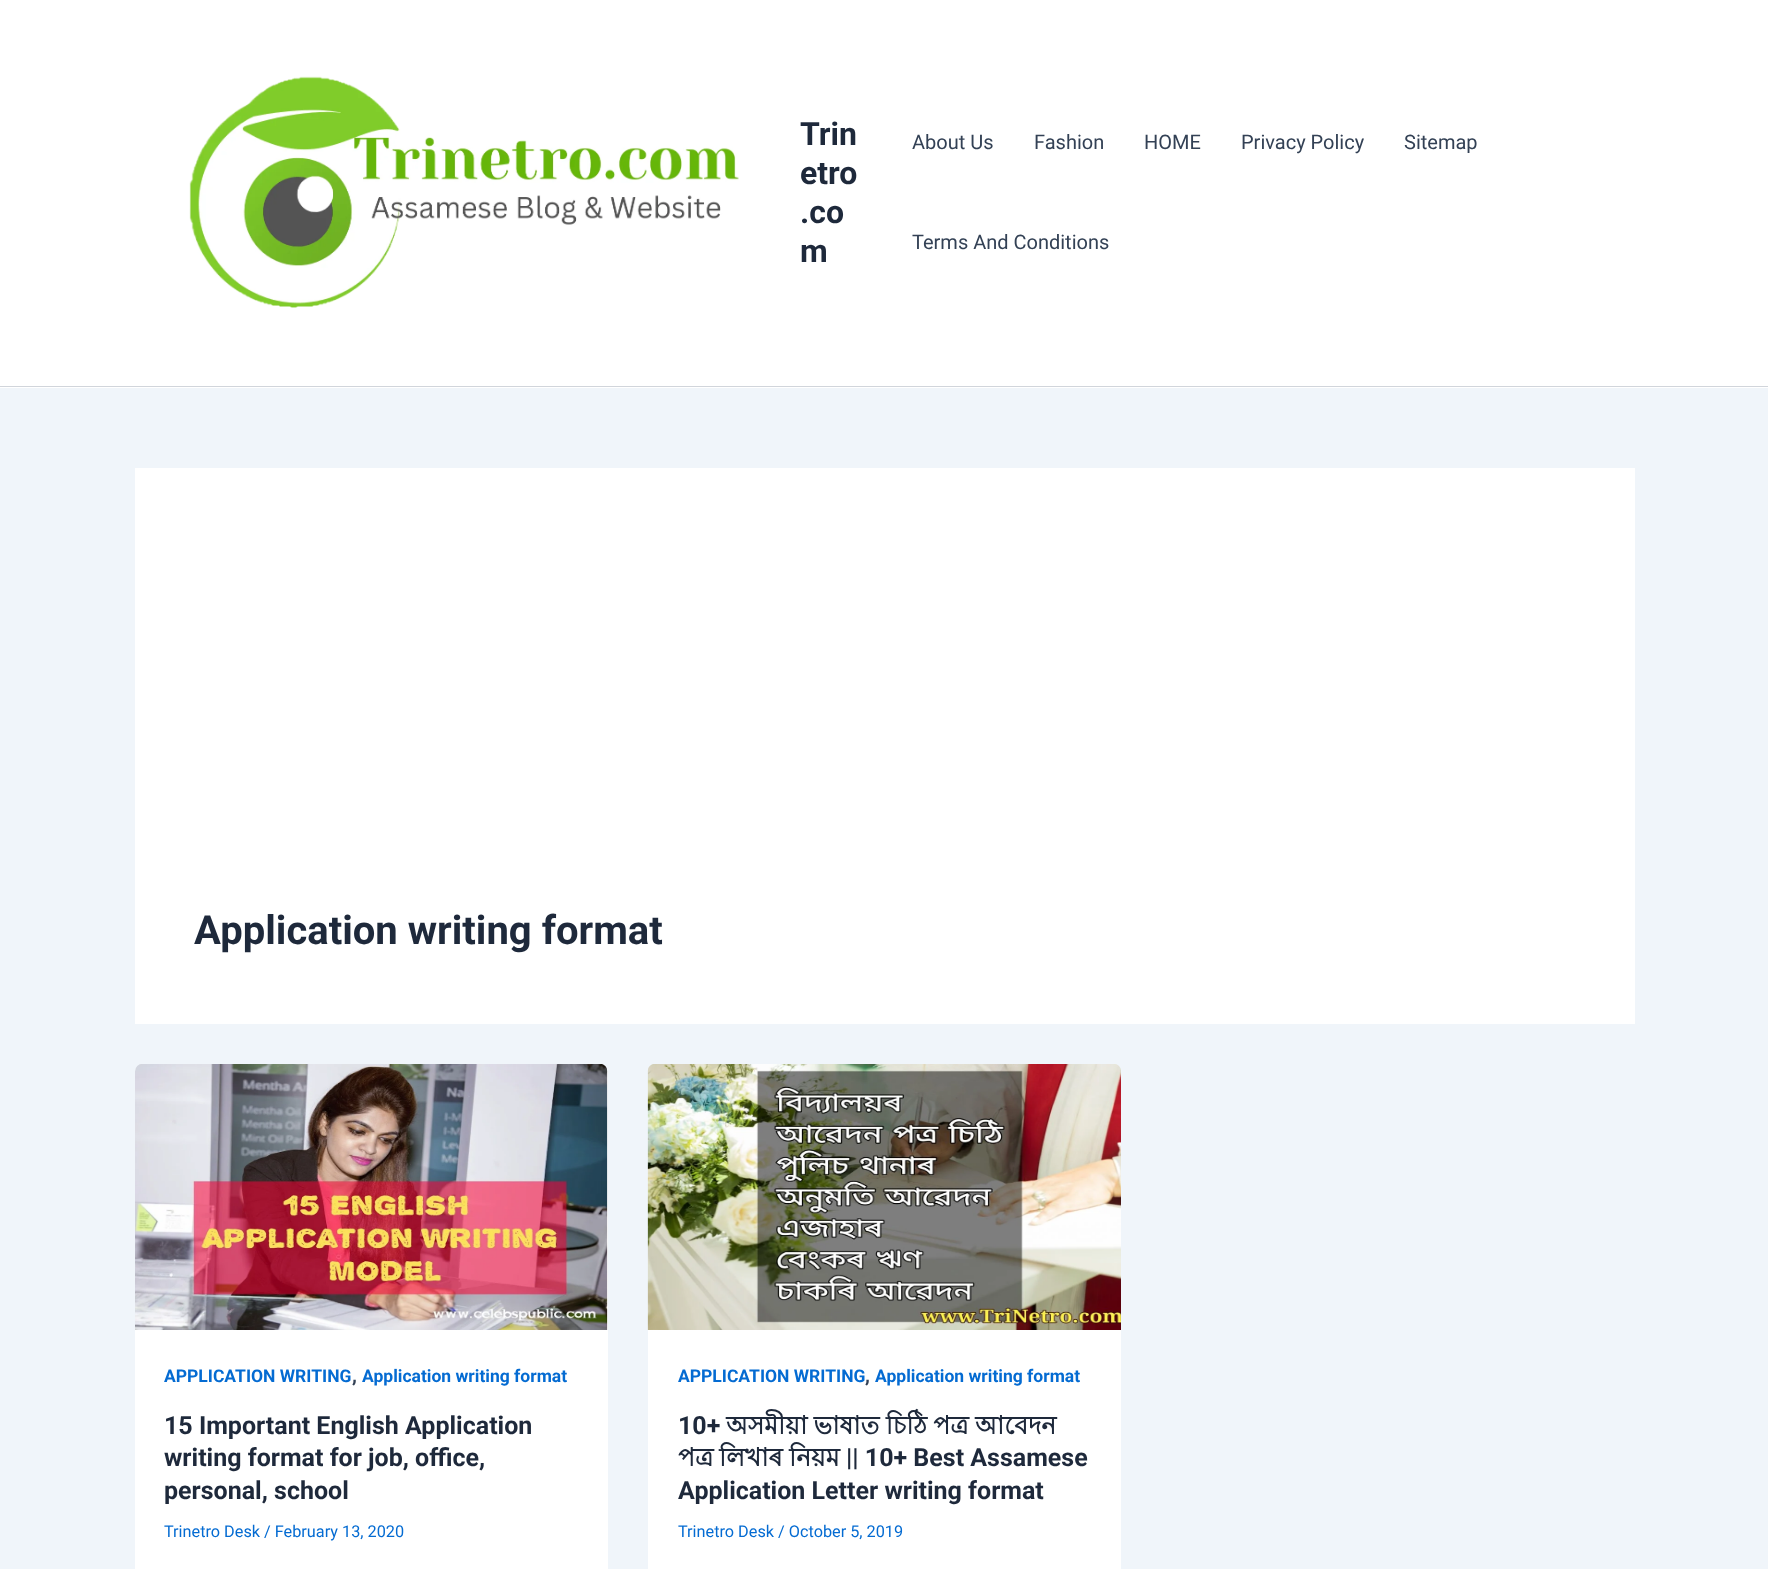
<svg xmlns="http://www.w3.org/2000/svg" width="1768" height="1569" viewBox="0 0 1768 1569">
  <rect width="100%" height="100%" fill="#f0f5fa"/>
  <path d="M0 0h1768v388H0z" fill="#fff"/>
  <path d="M0 386h1768v1H0z" fill="#d1d5db"/>
  <image x="189" y="76" width="550" height="232" href="img/1.png"/>
  <path d="M135 468h1500v556H135z" fill="#fff"/>
  <rect x="135" y="1064" width="473" height="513" rx="8" fill="#fff"/>
  <image x="135" y="1064" width="473" height="266" href="img/2.png"/>
  <rect x="648" y="1064" width="473" height="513" rx="8" fill="#fff"/>
  <image x="647" y="1064" width="474" height="266" href="img/3.png"/>
  <g font-family="Roboto" font-size="32" font-weight="bold" fill="#1e293b">
    <text x="800" y="145">Trin</text>
    <text x="800" y="184">etro</text>
    <text x="800" y="223">.co</text>
    <text x="800" y="262">m</text>
  </g>
  <g font-family="Roboto" font-size="20" fill="#334155">
    <text x="912" y="149">About Us</text>
    <text x="1034" y="149">Fashion</text>
    <text x="1144" y="149">HOME</text>
    <text x="1241" y="149">Privacy Policy</text>
    <text x="1404" y="149">Sitemap</text>
    <text x="912" y="249">Terms And Conditions</text>
  </g>
  <text x="194" y="944" font-family="Roboto" font-size="40" font-weight="bold" fill="#1e293b">Application writing format</text>
  <text x="164" y="1382" font-family="Roboto" font-size="17.5" font-weight="bold" fill="#046bd2">APPLICATION WRITING</text>
  <text x="352" y="1382" font-family="Roboto" font-size="20" font-weight="bold" fill="#334155">,</text>
  <text x="362" y="1382" font-family="Roboto" font-size="17.5" font-weight="bold" fill="#046bd2">Application writing format</text>
  <g font-family="Roboto" font-size="25" font-weight="bold" fill="#1e293b">
    <text x="164" y="1434">15 Important English Application</text>
    <text x="164" y="1466">writing format for job, office,</text>
    <text x="164" y="1499">personal, school</text>
  </g>
  <text x="164" y="1537" font-family="Roboto" font-size="16.25" fill="#046bd2">Trinetro Desk / February 13, 2020</text>
  <text x="678" y="1382" font-family="Roboto" font-size="17.5" font-weight="bold" fill="#046bd2">APPLICATION WRITING</text>
  <text x="865" y="1382" font-family="Roboto" font-size="20" font-weight="bold" fill="#334155">,</text>
  <text x="875" y="1382" font-family="Roboto" font-size="17.5" font-weight="bold" fill="#046bd2">Application writing format</text>
  <text x="678" y="1434" font-family="Roboto" font-size="25" font-weight="bold" fill="#1e293b">10+</text>
  <g font-family="Lohit Bengali" font-size="25" font-weight="bold" fill="#1e293b">
    <text x="726" y="1434" word-spacing="-0.5">অসমীয়া ভাষাত চিঠি পত্ৰ আবেদন</text>
    <text x="678" y="1466">পত্ৰ</text>
    <text x="719" y="1466">লিখাৰ</text>
    <text x="789" y="1466">নিয়ম</text>
  </g>
  <g font-family="Roboto" font-size="25" font-weight="bold" fill="#1e293b">
    <text x="846" y="1466">|| 10+ Best Assamese</text>
    <text x="678" y="1499">Application Letter writing format</text>
  </g>
  <text x="678" y="1537" font-family="Roboto" font-size="16.25" fill="#046bd2">Trinetro Desk / October 5, 2019</text>
</svg>
